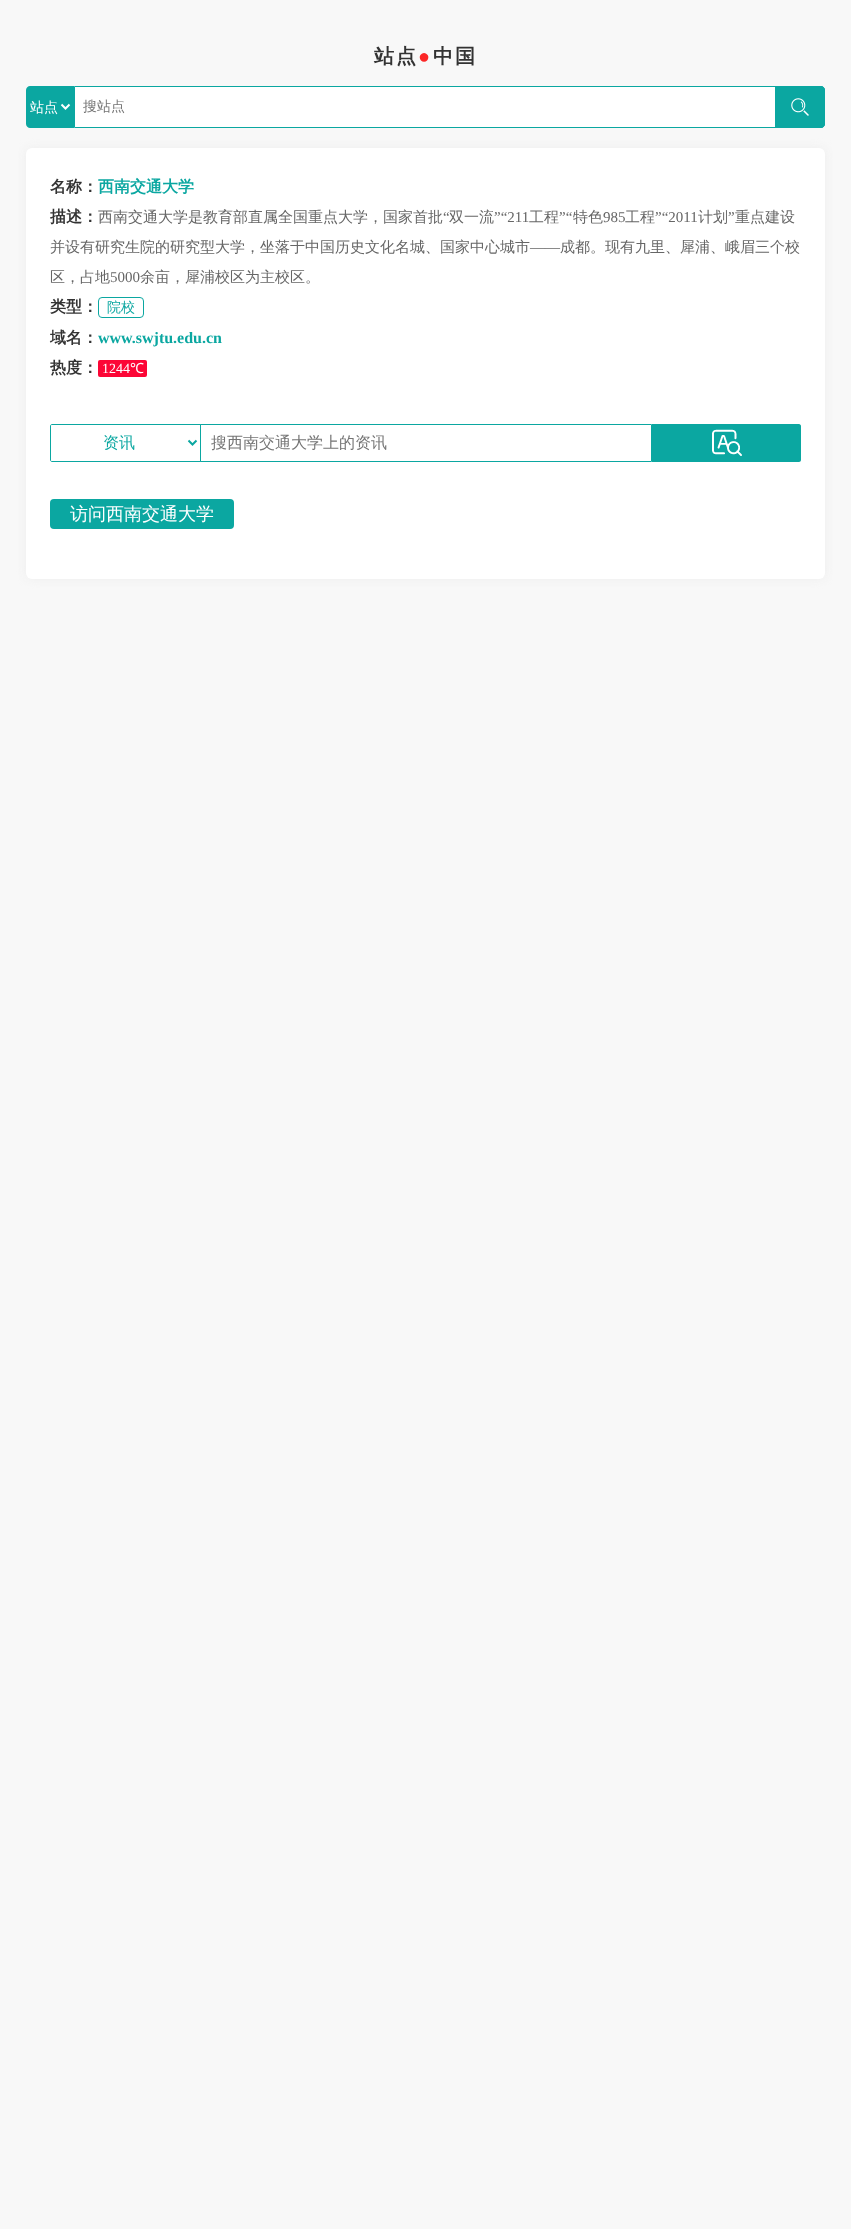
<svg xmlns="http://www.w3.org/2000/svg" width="851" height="2229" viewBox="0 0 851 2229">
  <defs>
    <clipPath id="clip1"><path d="M30 98h28v18H30z"/></clipPath>
  </defs>
  <rect width="100%" height="100%" fill="#f8f8f8"/>
  <path d="M30 86H74V128H30C28 128 26 126 26 124V90C26 88 28 86 30 86Z" fill="#0ba7a1"/>
  <path d="M61.5 104.5L65.5 108.5L69.5 104.5" fill="none" stroke="#fff" stroke-width="2"/>
  <path d="M74.5 86.5h701v41H74.5z" fill="#fff" stroke="#0ba7a1"/>
  <path d="M775 86H821C823 86 825 88 825 90V124C825 126 823 128 821 128H775Z" fill="#0ba7a1"/>
  <image x="791" y="98" width="18" height="18" href="img/1.png"/>
  <path d="M775.5 86.5H821C823 86.5 824.5 88 824.5 90V124C824.5 126 823 127.5 821 127.5H775.5Z" fill="none" stroke="#0ba7a1"/>
  <rect x="26" y="148" width="799" height="431" rx="6" fill="#eee" filter="blur(5px)"/>
  <rect x="26" y="148" width="799" height="431" rx="6" fill="#fff"/>
  <rect x="98.5" y="297.5" width="45" height="20" rx="3.5" fill="none" stroke="#0ba7a1"/>
  <rect x="98" y="360" width="49" height="17" rx="2" fill="#fc0636"/>
  <path d="M52 424.5H200.5V461.5H52C51 461.5 50.5 461 50.5 460V426C50.5 425 51 424.5 52 424.5Z" fill="none" stroke="#0ba7a1"/>
  <path d="M188.5 440.5L192.5 444.5L196.5 440.5" fill="none" stroke="#0ba7a1" stroke-width="2"/>
  <path d="M200.5 424.5h451v37H200.5z" fill="none" stroke="#0ba7a1"/>
  <path d="M652 424H799C800 424 801 425 801 426V460C801 461 800 462 799 462H652Z" fill="#0ba7a1"/>
  <image x="712" y="429" width="30" height="27" href="img/2.png"/>
  <rect x="50" y="499" width="184" height="30" rx="4" fill="#0ba7a1"/>
  <text x="374" y="63" font-family="WenQuanYi Zen Hei" font-size="20" font-weight="bold" letter-spacing="2" fill="#333">站点</text>
  <text x="418" y="63" font-family="Liberation Serif" font-size="20" font-weight="bold" letter-spacing="2" fill="#fc2727">●</text>
  <text x="433" y="63" font-family="WenQuanYi Zen Hei" font-size="20" font-weight="bold" letter-spacing="2" fill="#333">中国</text>
  <g clip-path="url(#clip1)">
    <text x="30" y="112" font-family="WenQuanYi Zen Hei" font-size="14" font-weight="500" fill="#fff">站点</text>
  </g>
  <text x="83" y="111" font-family="WenQuanYi Zen Hei" font-size="14" font-weight="500" fill="#757575">搜站点</text>
  <text x="50" y="192" font-family="WenQuanYi Zen Hei" font-size="16" font-weight="bold" fill="#333">名称：</text>
  <text x="98" y="192" font-family="WenQuanYi Zen Hei" font-size="16" font-weight="bold" fill="#0ba7a1">西南交通大学</text>
  <text x="50" y="222" font-family="WenQuanYi Zen Hei" font-size="16" font-weight="bold" fill="#333">描述：</text>
  <text x="98" y="222" font-family="WenQuanYi Zen Hei" font-size="15" font-weight="500" fill="#666">西南交通大学是教育部直属全国重点大学，国家首批</text>
  <text x="443" y="222" font-family="Liberation Serif" font-size="15" fill="#666">“</text>
  <text x="449" y="222" font-family="WenQuanYi Zen Hei" font-size="15" font-weight="500" fill="#666">双一流</text>
  <text x="494" y="222" font-family="Liberation Serif" font-size="15" fill="#666">”“211</text>
  <text x="529" y="222" font-family="WenQuanYi Zen Hei" font-size="15" font-weight="500" fill="#666">工程</text>
  <text x="559" y="222" font-family="Liberation Serif" font-size="15" fill="#666">”“</text>
  <text x="573" y="222" font-family="WenQuanYi Zen Hei" font-size="15" font-weight="500" fill="#666">特色</text>
  <text x="603" y="222" font-family="Liberation Serif" font-size="15" fill="#666">985</text>
  <text x="625" y="222" font-family="WenQuanYi Zen Hei" font-size="15" font-weight="500" fill="#666">工程</text>
  <text x="655" y="222" font-family="Liberation Serif" font-size="15" fill="#666">”“2011</text>
  <text x="698" y="222" font-family="WenQuanYi Zen Hei" font-size="15" font-weight="500" fill="#666">计划</text>
  <text x="728" y="222" font-family="Liberation Serif" font-size="15" fill="#666">”</text>
  <g font-family="WenQuanYi Zen Hei" font-size="15" font-weight="500" fill="#666">
    <text x="735" y="222">重点建设</text>
    <text x="50" y="252">并设有研究生院的研究型大学，坐落于中国历史文化名城、国家中心城市</text>
  </g>
  <text x="530" y="252" font-family="Liberation Serif" font-size="15" fill="#666">——</text>
  <g font-family="WenQuanYi Zen Hei" font-size="15" font-weight="500" fill="#666">
    <text x="560" y="252">成都。现有九里、犀浦、峨眉三个校</text>
    <text x="50" y="282">区，占地</text>
  </g>
  <text x="110" y="282" font-family="Liberation Serif" font-size="15" fill="#666">5000</text>
  <text x="140" y="282" font-family="WenQuanYi Zen Hei" font-size="15" font-weight="500" fill="#666">余亩，犀浦校区为主校区。</text>
  <text x="50" y="312" font-family="WenQuanYi Zen Hei" font-size="16" font-weight="bold" fill="#333">类型：</text>
  <text x="107" y="312" font-family="WenQuanYi Zen Hei" font-size="14" font-weight="500" fill="#0ba7a1">院校</text>
  <text x="50" y="343" font-family="WenQuanYi Zen Hei" font-size="16" font-weight="bold" fill="#333">域名：</text>
  <text x="98" y="343" font-family="Liberation Serif" font-size="16" font-weight="bold" fill="#0ba7a1">www.swjtu.edu.cn</text>
  <text x="50" y="373" font-family="WenQuanYi Zen Hei" font-size="16" font-weight="bold" fill="#333">热度：</text>
  <text x="102" y="373" font-family="Liberation Serif" font-size="14" fill="#fff">1244</text>
  <text x="130" y="373" font-family="Noto Sans" font-size="14" fill="#fff">℃</text>
  <text x="103" y="448" font-family="WenQuanYi Zen Hei" font-size="16" font-weight="500" fill="#0ba7a1">资讯</text>
  <text x="211" y="448" font-family="WenQuanYi Zen Hei" font-size="16" font-weight="500" fill="#757575">搜西南交通大学上的资讯</text>
  <text x="70" y="520" font-family="WenQuanYi Zen Hei" font-size="18" font-weight="500" fill="#fff">访问西南交通大学</text>
</svg>
